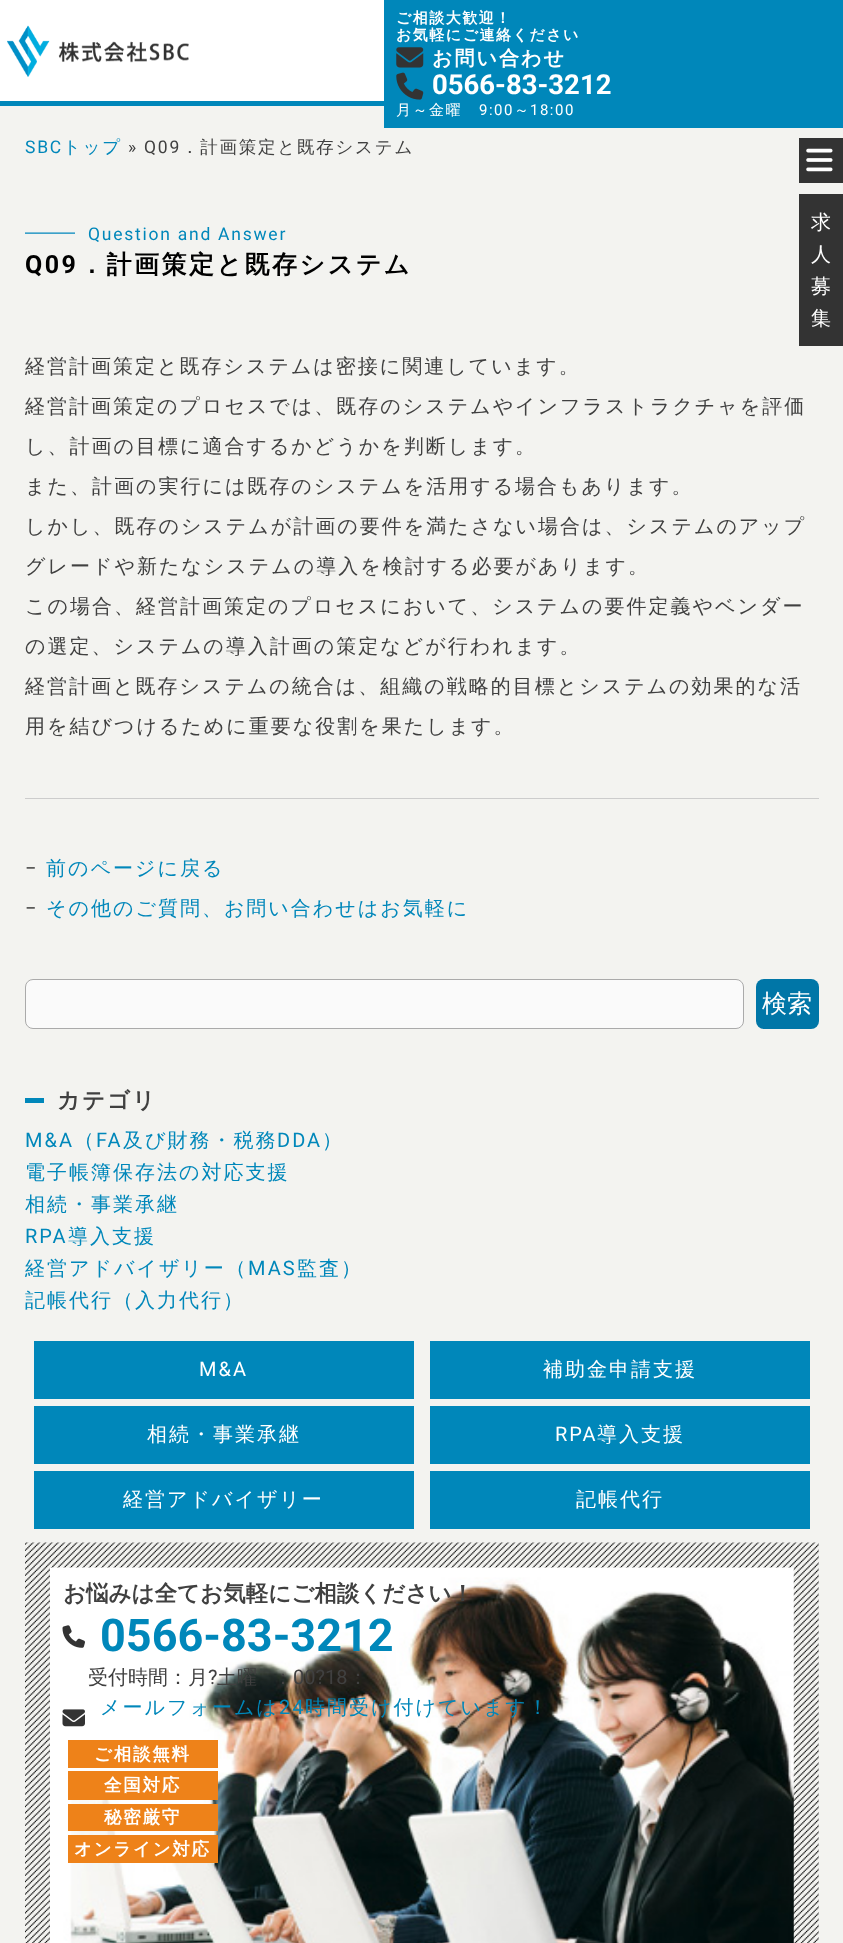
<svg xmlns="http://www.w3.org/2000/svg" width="843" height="1943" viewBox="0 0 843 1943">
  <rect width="100%" height="100%" fill="#f3f3f0"/>
  <path d="M0 0h384v101H0z" fill="#fff"/>
  <path d="M0 101h384v5H0z" fill="#0087ba"/>
  <image x="7" y="25" width="182" height="52" href="img/1.png"/>
  <path d="M384 0h459v128H384z" fill="#0087ba"/>
  <image x="396" y="47" width="28" height="21" href="img/2.png"/>
  <image x="396" y="72" width="28" height="28" href="img/3.png"/>
  <path d="M799 138h44v45H799z" fill="#333"/>
  <image x="806" y="148" width="27" height="24" href="img/4.png"/>
  <path d="M799 194h44v152H799z" fill="#333"/>
  <image x="25" y="232" width="50" height="2" href="img/5.png"/>
  <path d="M25 798h794v1H25z" fill="#ccc"/>
  <rect x="25.5" y="979.5" width="718" height="49" rx="7.5" fill="#fafafa" stroke="#aaa"/>
  <rect x="756" y="979" width="63" height="50" rx="8" fill="#0076a7"/>
  <path d="M25 1098h19v5H25z" fill="#0087ba"/>
  <path d="M34 1341h380v58H34z" fill="#0087ba"/>
  <path d="M430 1341h380v58H430z" fill="#0087ba"/>
  <path d="M34 1406h380v58H34z" fill="#0087ba"/>
  <path d="M430 1406h380v58H430z" fill="#0087ba"/>
  <path d="M34 1471h380v58H34z" fill="#0087ba"/>
  <path d="M430 1471h380v58H430z" fill="#0087ba"/>
  <image x="25" y="1542" width="794" height="401" href="img/6.png"/>
  <image x="50" y="1567" width="744" height="376" href="img/7.png"/>
  <image x="62" y="1625" width="23" height="23" href="img/8.png"/>
  <image x="62" y="1709" width="23" height="18" href="img/9.png"/>
  <path d="M68 1740h150v28H68z" fill="#ee8219"/>
  <path d="M68 1771h150v29H68z" fill="#ee8219"/>
  <path d="M68 1804h150v27H68z" fill="#ee8219"/>
  <path d="M68 1835h150v28H68z" fill="#ee8219"/>
  <text x="25" y="153" font-family="Roboto" font-size="17.5" letter-spacing="1.75" fill="#0087ba">SBC</text>
  <text x="63" y="153" font-family="WenQuanYi Zen Hei" font-size="17.5" font-weight="500" letter-spacing="1.75" fill="#0087ba">トップ</text>
  <text x="128" y="153" font-family="Roboto" font-size="17.5" letter-spacing="1.75" fill="#404040">» Q09</text>
  <text x="181" y="153" font-family="WenQuanYi Zen Hei" font-size="17.5" font-weight="500" letter-spacing="1.75" fill="#404040">．計画策定と既存システム</text>
  <g font-family="WenQuanYi Zen Hei" font-size="15" font-weight="bold" letter-spacing="1.5" fill="#fff">
    <text x="396" y="23">ご相談大歓迎！</text>
    <text x="396" y="40">お気軽にご連絡ください</text>
  </g>
  <text x="432" y="65" font-family="WenQuanYi Zen Hei" font-size="20" font-weight="bold" letter-spacing="2" fill="#fff">お問い合わせ</text>
  <text x="432" y="94" font-family="Roboto" font-size="27.5" font-weight="bold" fill="#fff">0566-83-3212</text>
  <text x="396" y="115" font-family="WenQuanYi Zen Hei" font-size="15" font-weight="500" letter-spacing="1.5" fill="#fff">月～金曜</text>
  <text x="479" y="115" font-family="Roboto" font-size="15" letter-spacing="1.5" fill="#fff">9:00</text>
  <text x="514" y="115" font-family="WenQuanYi Zen Hei" font-size="15" font-weight="500" letter-spacing="1.5" fill="#fff">～</text>
  <text x="530" y="115" font-family="Roboto" font-size="15" letter-spacing="1.5" fill="#fff">18:00</text>
  <g font-family="WenQuanYi Zen Hei" font-size="20" font-weight="500" letter-spacing="2" fill="#fff">
    <text x="811" y="229">求</text>
    <text x="811" y="261">人</text>
    <text x="811" y="293">募</text>
    <text x="811" y="325">集</text>
  </g>
  <text x="88" y="240" font-family="Roboto" font-size="17.5" letter-spacing="1.75" fill="#0087ba">Question and Answer</text>
  <text x="25" y="273" font-family="Roboto" font-size="25" font-weight="bold" letter-spacing="2.5" fill="#000">Q09</text>
  <text x="79" y="273" font-family="WenQuanYi Zen Hei" font-size="25" font-weight="bold" letter-spacing="2.5" fill="#000">．計画策定と既存システム</text>
  <g font-family="WenQuanYi Zen Hei" font-size="20" font-weight="500" letter-spacing="2" fill="#404040">
    <text x="25" y="373">経営計画策定と既存システムは密接に関連しています。</text>
    <text x="25" y="413">経営計画策定のプロセスでは、既存のシステムやインフラストラクチャを評価</text>
    <text x="25" y="453">し、計画の目標に適合するかどうかを判断します。</text>
    <text x="25" y="493">また、計画の実行には既存のシステムを活用する場合もあります。</text>
    <text x="25" y="533">しかし、既存のシステムが計画の要件を満たさない場合は、システムのアップ</text>
    <text x="25" y="573">グレードや新たなシステムの導入を検討する必要があります。</text>
    <text x="25" y="613">この場合、経営計画策定のプロセスにおいて、システムの要件定義やベンダー</text>
    <text x="25" y="653">の選定、システムの導入計画の策定などが行われます。</text>
    <text x="25" y="693">経営計画と既存システムの統合は、組織の戦略的目標とシステムの効果的な活</text>
    <text x="25" y="733">用を結びつけるために重要な役割を果たします。</text>
  </g>
  <text x="25" y="875" font-family="Roboto" font-size="20" letter-spacing="2" fill="#404040">−</text>
  <text x="46" y="875" font-family="WenQuanYi Zen Hei" font-size="20" font-weight="500" letter-spacing="2" fill="#0087ba">前のページに戻る</text>
  <text x="25" y="915" font-family="Roboto" font-size="20" letter-spacing="2" fill="#404040">−</text>
  <text x="46" y="915" font-family="WenQuanYi Zen Hei" font-size="20" font-weight="500" letter-spacing="2" fill="#0087ba">その他のご質問、お問い合わせはお気軽に</text>
  <text x="762" y="1012" font-family="WenQuanYi Zen Hei" font-size="25" font-weight="500" fill="#fff">検索</text>
  <text x="57" y="1108" font-family="WenQuanYi Zen Hei" font-size="22.5" font-weight="bold" letter-spacing="2" fill="#404040">カテゴリ</text>
  <text x="25" y="1147" font-family="Roboto" font-size="20" letter-spacing="2" fill="#0087ba">M&amp;A</text>
  <text x="74" y="1147" font-family="WenQuanYi Zen Hei" font-size="20" font-weight="500" letter-spacing="2" fill="#0087ba">（</text>
  <text x="96" y="1147" font-family="Roboto" font-size="20" letter-spacing="2" fill="#0087ba">FA</text>
  <text x="123" y="1147" font-family="WenQuanYi Zen Hei" font-size="20" font-weight="500" letter-spacing="2" fill="#0087ba">及び財務・税務</text>
  <text x="277" y="1147" font-family="Roboto" font-size="20" letter-spacing="2" fill="#0087ba">DDA</text>
  <g font-family="WenQuanYi Zen Hei" font-size="20" font-weight="500" letter-spacing="2" fill="#0087ba">
    <text x="322" y="1147">）</text>
    <text x="25" y="1179">電子帳簿保存法の対応支援</text>
    <text x="25" y="1211">相続・事業承継</text>
  </g>
  <text x="25" y="1243" font-family="Roboto" font-size="20" letter-spacing="2" fill="#0087ba">RPA</text>
  <g font-family="WenQuanYi Zen Hei" font-size="20" font-weight="500" letter-spacing="2" fill="#0087ba">
    <text x="68" y="1243">導入支援</text>
    <text x="25" y="1275">経営アドバイザリー（</text>
  </g>
  <text x="248" y="1275" font-family="Roboto" font-size="20" letter-spacing="2" fill="#0087ba">MAS</text>
  <g font-family="WenQuanYi Zen Hei" font-size="20" font-weight="500" letter-spacing="2" fill="#0087ba">
    <text x="297" y="1275">監査）</text>
    <text x="25" y="1307">記帳代行（入力代行）</text>
  </g>
  <text x="199" y="1376" font-family="Roboto" font-size="20" letter-spacing="2" fill="#fff">M&amp;A</text>
  <g font-family="WenQuanYi Zen Hei" font-size="20" font-weight="500" letter-spacing="2" fill="#fff">
    <text x="543" y="1376">補助金申請支援</text>
    <text x="147" y="1441">相続・事業承継</text>
  </g>
  <text x="555" y="1441" font-family="Roboto" font-size="20" letter-spacing="2" fill="#fff">RPA</text>
  <g font-family="WenQuanYi Zen Hei" font-size="20" font-weight="500" letter-spacing="2" fill="#fff">
    <text x="597" y="1441">導入支援</text>
    <text x="123" y="1506">経営アドバイザリー</text>
    <text x="576" y="1506">記帳代行</text>
  </g>
  <text x="63" y="1601" font-family="WenQuanYi Zen Hei" font-size="22.5" font-weight="bold" fill="#404040">お悩みは全てお気軽にご相談ください！</text>
  <text x="100" y="1651" font-family="Roboto" font-size="45" font-weight="bold" fill="#0087ba">0566-83-3212</text>
  <text x="88" y="1684" font-family="WenQuanYi Zen Hei" font-size="20" font-weight="500" fill="#404040">受付時間：月</text>
  <text x="208" y="1684" font-family="Roboto" font-size="20" fill="#404040">?</text>
  <g font-family="WenQuanYi Zen Hei" font-size="20" font-weight="500" fill="#404040">
    <text x="217" y="1684">土曜</text>
    <text x="273" y="1684">：</text>
  </g>
  <text x="293" y="1684" font-family="Roboto" font-size="20" fill="#404040">00?18</text>
  <text x="348" y="1684" font-family="WenQuanYi Zen Hei" font-size="20" font-weight="500" fill="#404040">：</text>
  <text x="100" y="1714" font-family="WenQuanYi Zen Hei" font-size="20" font-weight="500" letter-spacing="2" fill="#0087ba">メールフォームは</text>
  <text x="279" y="1714" font-family="Roboto" font-size="20" letter-spacing="2" fill="#0087ba">24</text>
  <text x="305" y="1714" font-family="WenQuanYi Zen Hei" font-size="20" font-weight="500" letter-spacing="2" fill="#0087ba">時間受け付けています！</text>
  <g font-family="WenQuanYi Zen Hei" font-size="17.5" font-weight="bold" letter-spacing="1.75" fill="#fff">
    <text x="94" y="1760">ご相談無料</text>
    <text x="104" y="1791">全国対応</text>
    <text x="104" y="1823">秘密厳守</text>
    <text x="74" y="1855">オンライン対応</text>
  </g>
</svg>
